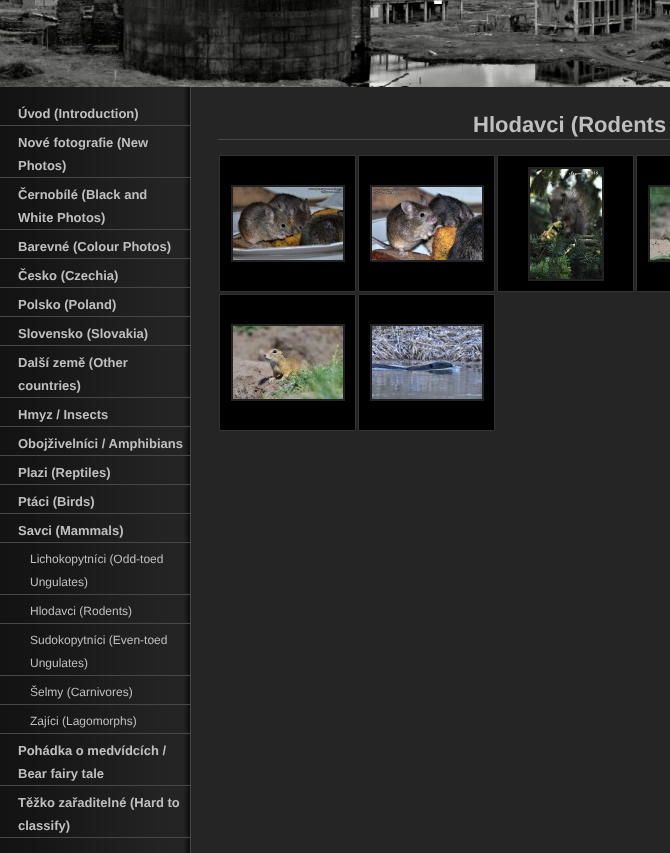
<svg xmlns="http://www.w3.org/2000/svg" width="670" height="853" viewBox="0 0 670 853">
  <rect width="100%" height="100%" fill="#fff"/>
  <image x="0" y="87" width="190" height="766" href="img/1.png"/>
  <image x="0" y="0" width="670" height="87" href="img/2.png"/>
  <path d="M0 125h190v1H0z" fill="#474747"/>
  <path d="M0 177h190v1H0z" fill="#474747"/>
  <path d="M0 229h190v1H0z" fill="#474747"/>
  <path d="M0 258h190v1H0z" fill="#474747"/>
  <path d="M0 287h190v1H0z" fill="#474747"/>
  <path d="M0 316h190v1H0z" fill="#474747"/>
  <path d="M0 345h190v1H0z" fill="#474747"/>
  <path d="M0 397h190v1H0z" fill="#474747"/>
  <path d="M0 426h190v1H0z" fill="#474747"/>
  <path d="M0 455h190v1H0z" fill="#474747"/>
  <path d="M0 484h190v1H0z" fill="#474747"/>
  <path d="M0 513h190v1H0z" fill="#474747"/>
  <path d="M0 542h190v1H0z" fill="#474747"/>
  <path d="M0 594h190v1H0z" fill="#474747"/>
  <path d="M0 623h190v1H0z" fill="#474747"/>
  <path d="M0 675h190v1H0z" fill="#474747"/>
  <path d="M0 704h190v1H0z" fill="#474747"/>
  <path d="M0 733h190v1H0z" fill="#474747"/>
  <path d="M0 785h190v1H0z" fill="#474747"/>
  <path d="M0 837h190v1H0z" fill="#474747"/>
  <path d="M191 87h479v766H191z" fill="#252525"/>
  <path d="M190 87h1v766H190z" fill="#474747"/>
  <path d="M218 139h452v1H218z" fill="#474747"/>
  <path d="M219.5 155.5h136v136H219.5z" fill="#000" stroke="#333"/>
  <path d="M232 186h112v75H232z" fill="none" stroke="#222" stroke-width="2"/>
  <image x="233" y="187" width="110" height="73" href="img/3.png"/>
  <path d="M358.5 155.5h136v136H358.5z" fill="#000" stroke="#333"/>
  <path d="M371 186h112v75H371z" fill="none" stroke="#222" stroke-width="2"/>
  <image x="372" y="187" width="110" height="73" href="img/4.png"/>
  <path d="M497.5 155.5h136v136H497.5z" fill="#000" stroke="#333"/>
  <path d="M529 168h74v112H529z" fill="none" stroke="#222" stroke-width="2"/>
  <image x="530" y="169" width="72" height="110" href="img/5.png"/>
  <path d="M636.5 155.5h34v136H636.5z" fill="#000" stroke="#333"/>
  <path d="M649 186h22v75H649z" fill="none" stroke="#222" stroke-width="2"/>
  <image x="650" y="187" width="20" height="73" href="img/6.png"/>
  <path d="M219.5 294.5h136v136H219.5z" fill="#000" stroke="#333"/>
  <path d="M232 325h112v75H232z" fill="none" stroke="#222" stroke-width="2"/>
  <image x="233" y="326" width="110" height="73" href="img/7.png"/>
  <path d="M358.5 294.5h136v136H358.5z" fill="#000" stroke="#333"/>
  <path d="M371 325h112v75H371z" fill="none" stroke="#222" stroke-width="2"/>
  <image x="372" y="326" width="110" height="73" href="img/8.png"/>
  <text x="433" y="10" font-family="Liberation Sans" font-size="30" font-weight="bold" fill="#fff">-</text>
  <g font-family="Liberation Sans" font-size="13" font-weight="bold" fill="#bfbfbf">
    <text x="18" y="118">Úvod (Introduction)</text>
    <text x="18" y="147">Nové fotografie (New</text>
    <text x="18" y="170">Photos)</text>
    <text x="18" y="199">Černobílé (Black and</text>
    <text x="18" y="222">White Photos)</text>
    <text x="18" y="251">Barevné (Colour Photos)</text>
    <text x="18" y="280">Česko (Czechia)</text>
    <text x="18" y="309">Polsko (Poland)</text>
    <text x="18" y="338">Slovensko (Slovakia)</text>
    <text x="18" y="367">Další země (Other</text>
    <text x="18" y="390">countries)</text>
    <text x="18" y="419">Hmyz / Insects</text>
    <text x="18" y="448">Obojživelníci / Amphibians</text>
    <text x="18" y="477">Plazi (Reptiles)</text>
    <text x="18" y="506">Ptáci (Birds)</text>
    <text x="18" y="535">Savci (Mammals)</text>
  </g>
  <g font-family="Liberation Sans" font-size="12" fill="#bfbfbf">
    <text x="30" y="563">Lichokopytníci (Odd-toed</text>
    <text x="30" y="586">Ungulates)</text>
    <text x="30" y="615">Hlodavci (Rodents)</text>
    <text x="30" y="644">Sudokopytníci (Even-toed</text>
    <text x="30" y="667">Ungulates)</text>
    <text x="30" y="696">Šelmy (Carnivores)</text>
    <text x="30" y="725">Zajíci (Lagomorphs)</text>
  </g>
  <g font-family="Liberation Sans" font-size="13" font-weight="bold" fill="#bfbfbf">
    <text x="18" y="755">Pohádka o medvídcích /</text>
    <text x="18" y="778">Bear fairy tale</text>
    <text x="18" y="807">Těžko zařaditelné (Hard to</text>
    <text x="18" y="830">classify)</text>
  </g>
  <text x="473" y="132" font-family="Liberation Sans" font-size="22" font-weight="bold" fill="#bfbfbf">Hlodavci (Rodents</text>
</svg>
